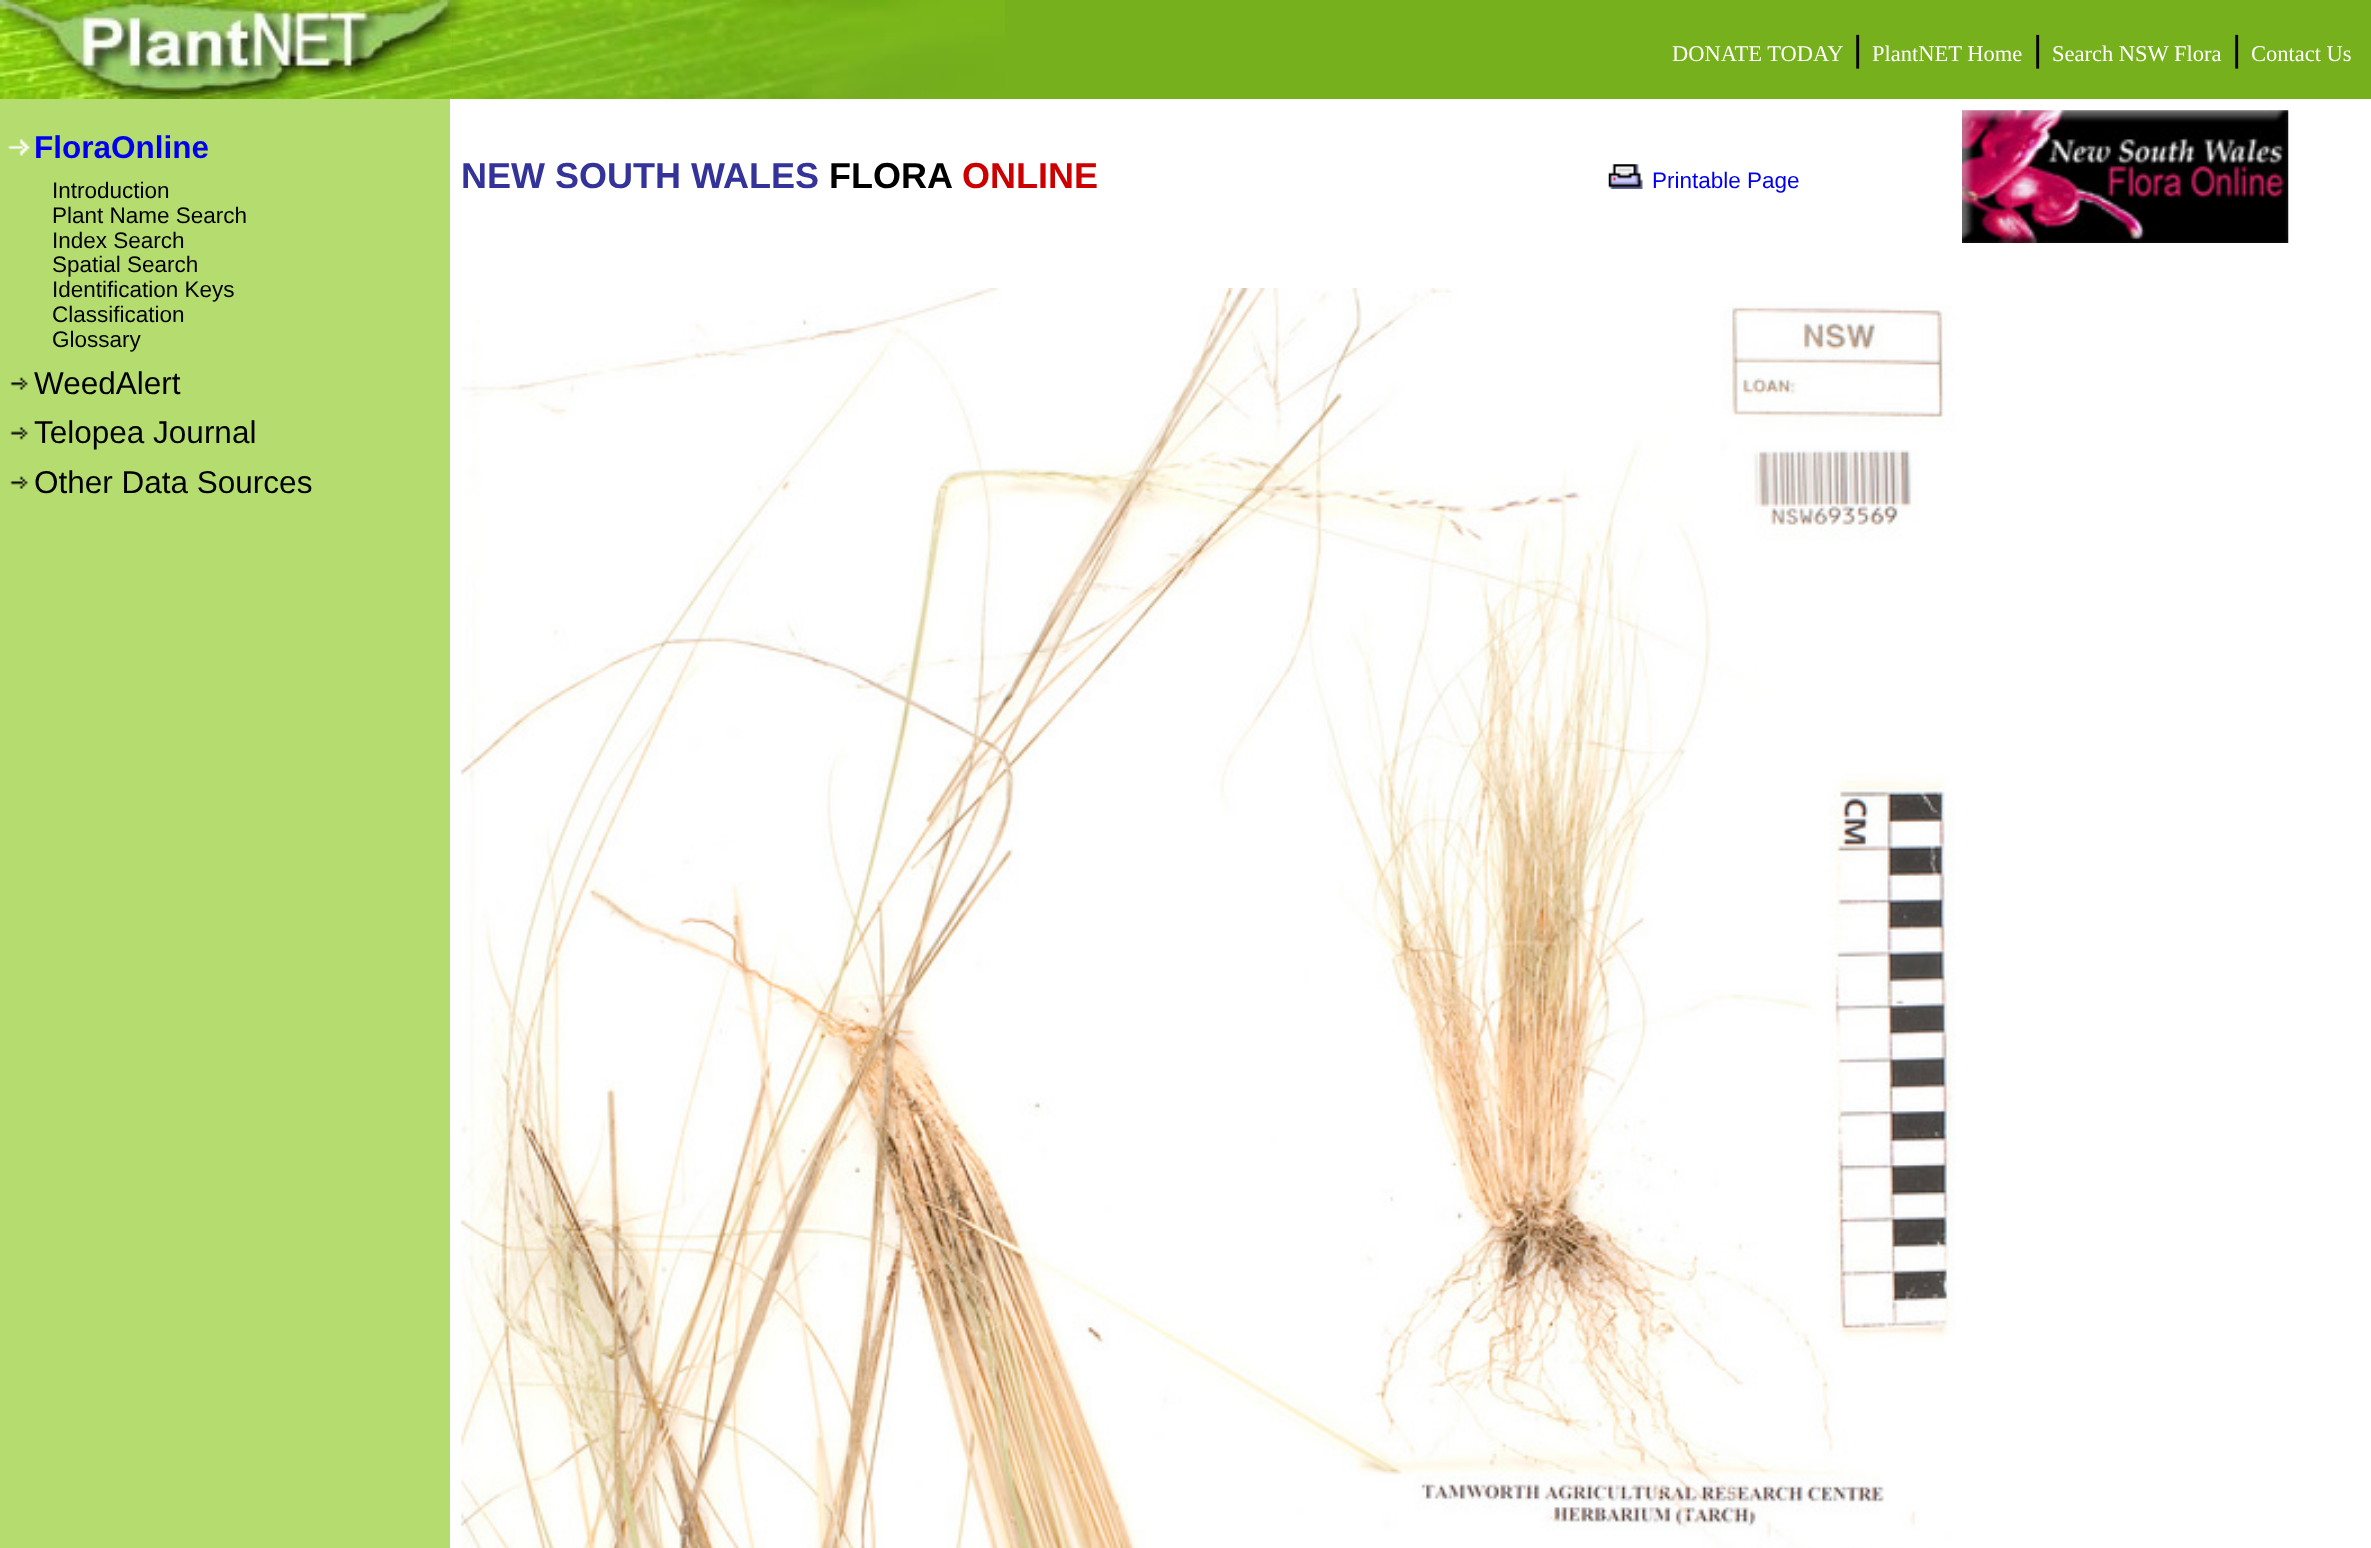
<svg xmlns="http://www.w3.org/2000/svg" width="2371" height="1548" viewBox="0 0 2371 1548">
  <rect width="100%" height="100%" fill="#fff"/>
  <path d="M452 0h1919v99H452z" fill="#76b01d"/>
  <image x="452" y="0" width="553" height="99" href="img/2.png"/>
  <image x="0" y="0" width="453" height="99" href="img/1.png"/>
  <path d="M0 99h450v1449H0z" fill="#b5dc6f"/>
  <image x="8" y="139" width="22" height="17" href="img/3.png"/>
  <image x="10" y="377" width="18" height="13" href="img/4.png"/>
  <image x="10" y="427" width="18" height="13" href="img/5.png"/>
  <image x="10" y="476" width="18" height="13" href="img/4.png"/>
  <image x="1608" y="164" width="35" height="25" href="img/6.png"/>
  <image x="1962" y="110" width="327" height="133" href="img/7.png"/>
  <image x="461" y="288" width="1495" height="1260" href="img/8.png"/>
  <text x="1672" y="61" font-family="Liberation Serif" font-size="22.5" fill="#fff">DONATE TODAY</text>
  <text x="1853" y="61" font-family="Liberation Sans" font-size="36" fill="#000">|</text>
  <text x="1872" y="61" font-family="Liberation Serif" font-size="22.5" fill="#fff">PlantNET Home</text>
  <text x="2033" y="61" font-family="Liberation Sans" font-size="36" fill="#000">|</text>
  <text x="2052" y="61" font-family="Liberation Serif" font-size="22.5" fill="#fff">Search NSW Flora</text>
  <text x="2232" y="61" font-family="Liberation Sans" font-size="36" fill="#000">|</text>
  <text x="2251" y="61" font-family="Liberation Serif" font-size="22.5" fill="#fff">Contact Us</text>
  <text x="34" y="158" font-family="Liberation Sans" font-size="31.5" font-weight="bold" fill="#00e">FloraOnline</text>
  <g font-family="Liberation Sans" font-size="22.5" fill="#000">
    <text x="52" y="198">Introduction</text>
    <text x="52" y="223">Plant Name Search</text>
    <text x="52" y="248">Index Search</text>
    <text x="52" y="272">Spatial Search</text>
    <text x="52" y="297">Identification Keys</text>
    <text x="52" y="322">Classification</text>
    <text x="52" y="347">Glossary</text>
  </g>
  <g font-family="Liberation Sans" font-size="31.5" fill="#000">
    <text x="34" y="394">WeedAlert</text>
    <text x="34" y="443">Telopea Journal</text>
    <text x="34" y="493">Other Data Sources</text>
  </g>
  <text x="461" y="188" font-family="Liberation Sans" font-size="36" font-weight="bold" fill="#339">NEW SOUTH WALES</text>
  <text x="829" y="188" font-family="Liberation Sans" font-size="36" font-weight="bold" fill="#000">FLORA</text>
  <text x="962" y="188" font-family="Liberation Sans" font-size="36" font-weight="bold" fill="#c00">ONLINE</text>
  <text x="1652" y="188" font-family="Liberation Sans" font-size="22.5" fill="#00e">Printable Page</text>
</svg>
